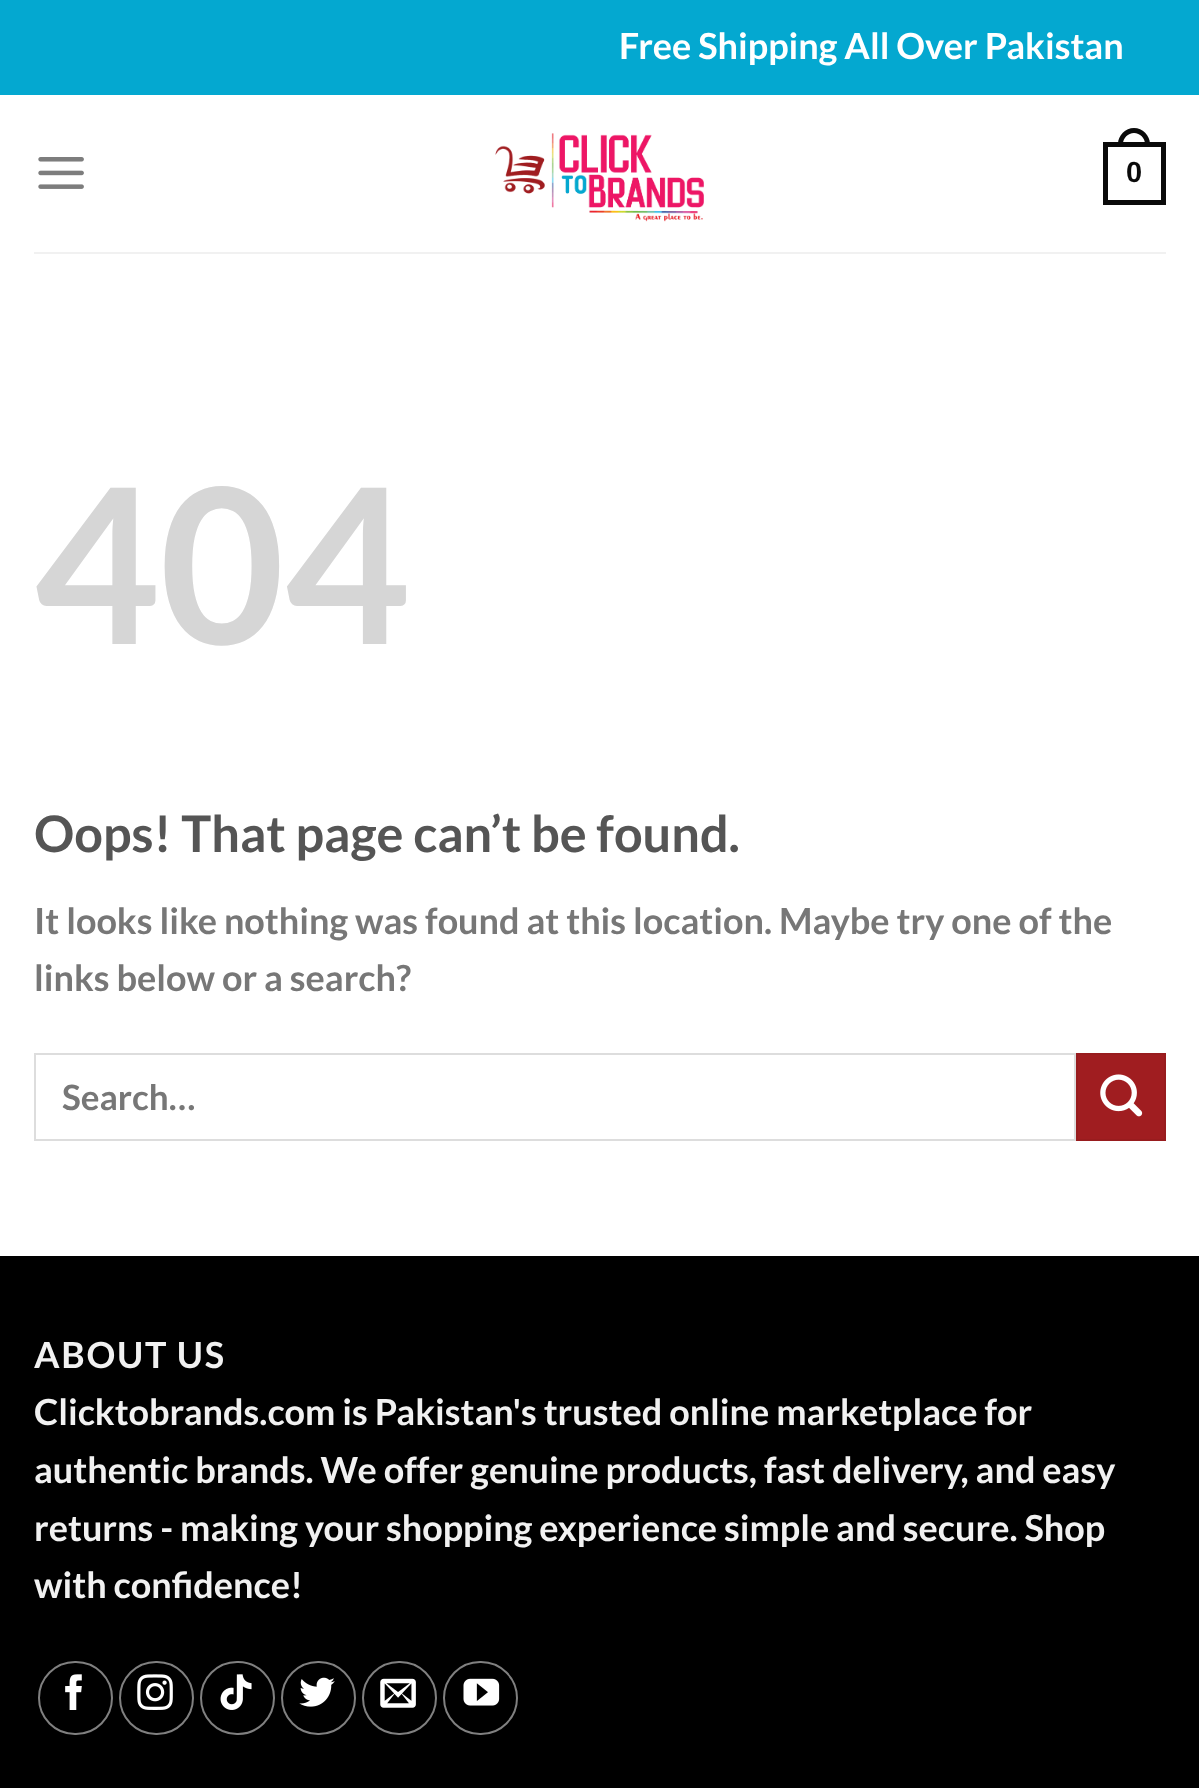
<svg xmlns="http://www.w3.org/2000/svg" width="1199" height="1788" viewBox="0 0 1199 1788">
  <rect width="100%" height="100%" fill="#04a8d0"/>
  <path d="M0 95h1199v1161H0z" fill="#fff"/>
  <image x="38" y="157" width="46" height="32" href="img/1.png"/>
  <image x="495" y="133" width="209" height="89" href="img/2.png"/>
  <path d="M1105.5 144.5h58v58H1105.5z" fill="none" stroke="#0a0a0a" stroke-width="5"/>
  <path d="M1134 128C1142.5 128 1150 135.5 1150 144V146H1118V144C1118 135.5 1125.5 128 1134 128ZM1134 133C1140 133 1145 138 1145 144V146H1123V144C1123 138 1128 133 1134 133Z" fill="#0a0a0a" fill-rule="evenodd"/>
  <path d="M34 252h1132v2H34z" fill="#f1f1f1"/>
  <path d="M35 1054h1040v86H35z" fill="none" stroke="#ddd" stroke-width="2"/>
  <path d="M1077 1054h88v86H1077z" fill="#a01d20" stroke="#981c1e" stroke-width="2"/>
  <image x="1100" y="1074" width="43" height="43" href="img/3.png"/>
  <path d="M0 1256h1199v532H0z" fill="#000"/>
  <rect x="39" y="1662" width="73" height="72" rx="36" fill="none" stroke="#808080" stroke-width="2"/>
  <image x="65" y="1674" width="17" height="36" href="img/4.png"/>
  <rect x="120" y="1662" width="73" height="72" rx="36" fill="none" stroke="#808080" stroke-width="2"/>
  <image x="137" y="1674" width="36" height="36" href="img/5.png"/>
  <rect x="201" y="1662" width="73" height="72" rx="36" fill="none" stroke="#808080" stroke-width="2"/>
  <image x="220" y="1674" width="32" height="36" href="img/6.png"/>
  <rect x="282" y="1662" width="73" height="72" rx="36" fill="none" stroke="#808080" stroke-width="2"/>
  <image x="299" y="1677" width="36" height="30" href="img/7.png"/>
  <rect x="363" y="1662" width="73" height="72" rx="36" fill="none" stroke="#808080" stroke-width="2"/>
  <image x="380" y="1678" width="36" height="30" href="img/8.png"/>
  <rect x="444" y="1662" width="73" height="72" rx="36" fill="none" stroke="#808080" stroke-width="2"/>
  <image x="463" y="1678" width="37" height="28" href="img/9.png"/>
  <text x="619" y="59" font-family="Lato" font-size="36" font-weight="bold" fill="#fff">Free Shipping All Over Pakistan</text>
  <text x="1126" y="182" font-family="Liberation Sans" font-size="29" font-weight="bold" fill="#0a0a0a">0</text>
  <text x="34" y="644" font-family="Lato" font-size="216" font-weight="bold" fill="#d6d6d6">404</text>
  <text x="34" y="852" font-family="Lato" font-size="50.4" font-weight="bold" fill="#555">Oops! That page can’t be found.</text>
  <g font-family="Lato" font-size="36" font-weight="bold" fill="#777">
    <text x="34" y="934">It looks like nothing was found at this location. Maybe try one of the</text>
    <text x="34" y="991">links below or a search?</text>
  </g>
  <text x="62" y="1110" font-family="Lato" font-size="35" font-weight="bold" fill="#777">Search…</text>
  <text x="34" y="1368" font-family="Lato" font-size="36" font-weight="bold" letter-spacing="1.75" fill="#f1f1f1">ABOUT US</text>
  <g font-family="Lato" font-size="36" font-weight="bold" fill="#f1f1f1">
    <text x="34" y="1425">Clicktobrands.com is Pakistan's trusted online marketplace for</text>
    <text x="34" y="1483">authentic brands. We offer genuine products, fast delivery, and easy</text>
    <text x="34" y="1541">returns - making your shopping experience simple and secure. Shop</text>
    <text x="34" y="1598">with confidence!</text>
  </g>
</svg>
